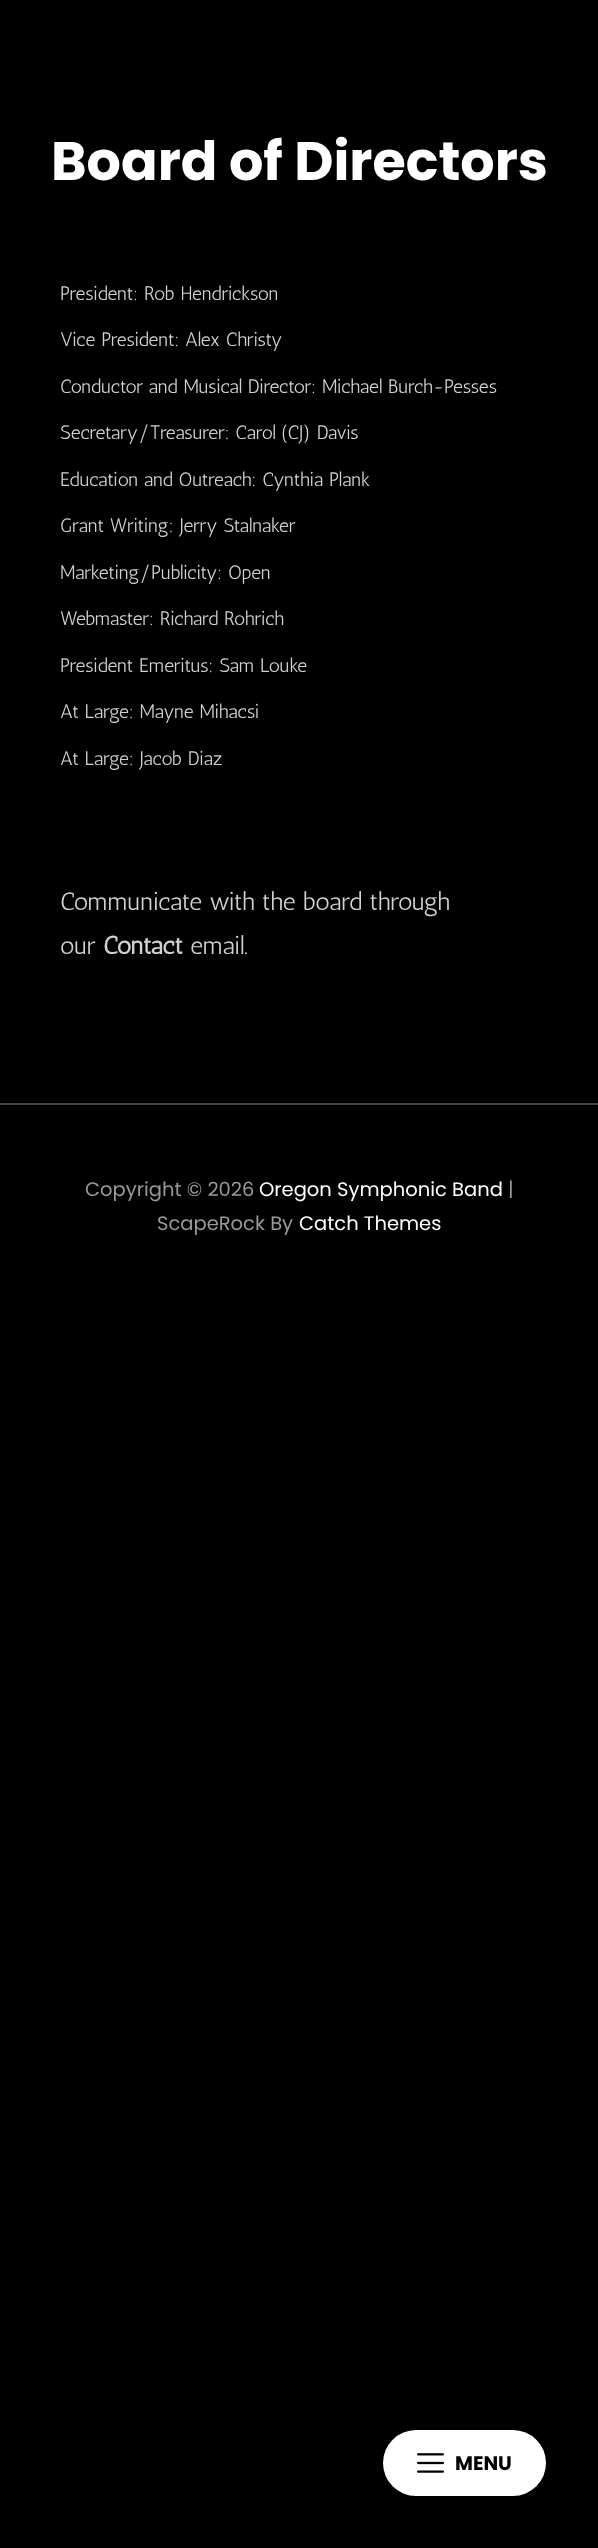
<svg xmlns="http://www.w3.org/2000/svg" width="598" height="2548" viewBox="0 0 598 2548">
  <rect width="100%" height="100%" fill="#000"/>
  <path d="M0 1103h598v2H0z" fill="#444"/>
  <rect x="383" y="2430" width="163" height="66" rx="33" fill="#fff"/>
  <image x="417" y="2453" width="27" height="20" href="img/1.png"/>
  <text x="51" y="180" font-family="Poppins" font-size="54" font-weight="bold" fill="#fff">Board of Directors</text>
  <g font-family="Antic" font-size="19.5" fill="#d1d1d1">
    <text x="60" y="300">President: Rob Hendrickson</text>
    <text x="60" y="346">Vice President: Alex Christy</text>
    <text x="60" y="393">Conductor and Musical Director: Michael Burch-Pesses</text>
    <text x="60" y="439">Secretary/Treasurer: Carol (CJ) Davis</text>
    <text x="60" y="486">Education and Outreach: Cynthia Plank</text>
    <text x="60" y="532">Grant Writing: Jerry Stalnaker</text>
    <text x="60" y="579">Marketing/Publicity: Open</text>
    <text x="60" y="625">Webmaster: Richard Rohrich</text>
    <text x="60" y="672">President Emeritus: Sam Louke</text>
    <text x="60" y="718">At Large: Mayne Mihacsi</text>
    <text x="60" y="765">At Large: Jacob Diaz</text>
  </g>
  <g font-family="Antic" font-size="25.25" fill="#d1d1d1">
    <text x="60" y="910">Communicate with the board through</text>
    <text x="60" y="954">our</text>
  </g>
  <text x="103" y="954" font-family="Antic" font-size="25.25" font-weight="bold" fill="#d1d1d1">Contact</text>
  <text x="190" y="954" font-family="Antic" font-size="25.25" fill="#d1d1d1">email.</text>
  <text x="85" y="1196" font-family="Poppins" font-size="19.5" fill="#999">Copyright © 2026</text>
  <text x="259" y="1196" font-family="Poppins" font-size="19.5" fill="#fff">Oregon Symphonic Band</text>
  <g font-family="Poppins" font-size="19.5" fill="#999">
    <text x="508" y="1196">|</text>
    <text x="157" y="1230">ScapeRock By</text>
  </g>
  <text x="299" y="1230" font-family="Poppins" font-size="19.5" fill="#fff">Catch Themes</text>
  <text x="455" y="2470" font-family="Poppins" font-size="19.5" font-weight="bold" fill="#000">MENU</text>
</svg>
